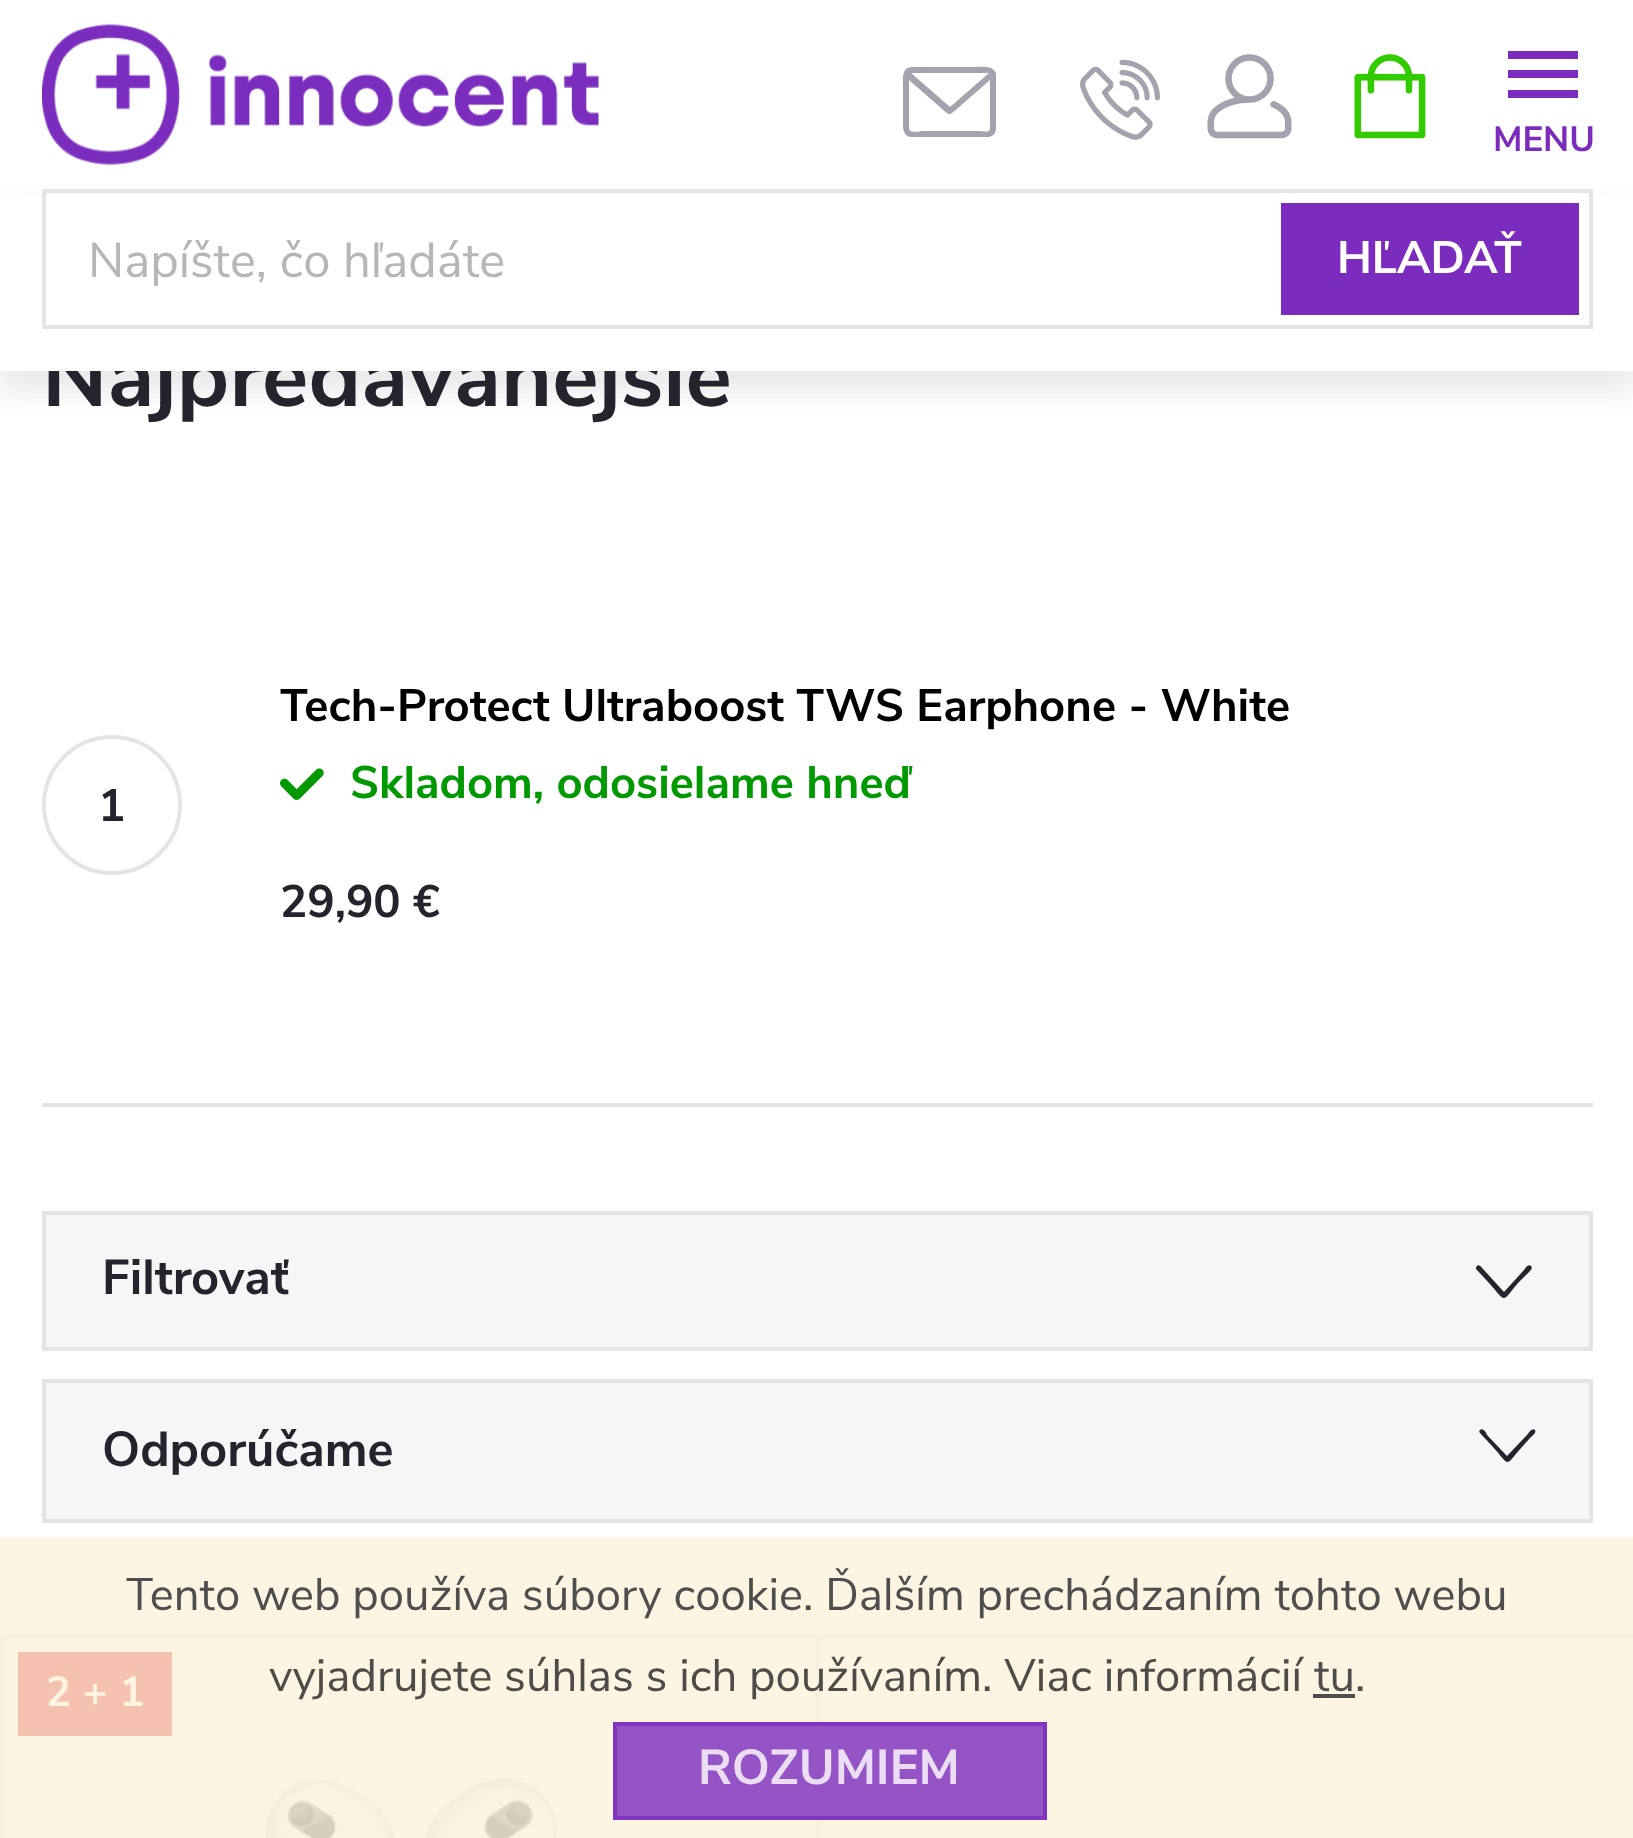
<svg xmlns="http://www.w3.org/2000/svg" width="1633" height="1838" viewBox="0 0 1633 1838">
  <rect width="100%" height="100%" fill="#fff"/>
  <path d="M0 1537h1633v301H0z" fill="#fdf5e1"/>
  <path d="M617 1726h426v90H617z" fill="#9554c6"/>
  <path d="M912 67H975C981 67 994 65 996 74V120C996 127 998 137 987 137H910C902 135 903 126 903 120V85C903 78 902 67 912 67ZM987 73H911L950 107L989 73ZM909 128C909 134 919 131 924 131H975C991 131 990 135 990 120V80L958 108C948 116 951 116 941 108L909 80Z" fill="#a3a3af"/>
  <image x="1080" y="59" width="80" height="81" href="img/1.png"/>
  <image x="1207" y="54" width="85" height="85" href="img/2.png"/>
  <path d="M1508 98H1578V90H1508ZM1508 78H1578V70H1508ZM1508 51V59H1578V51Z" fill="#7b2cbf"/>
  <path d="M0 210h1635v182H0z" fill="#24242e1a" filter="blur(14px)"/>
  <image x="42" y="24" width="557" height="141" href="img/3.png"/>
  <image x="1354" y="54" width="72" height="85" href="img/4.png"/>
  <path d="M42 1103h1551v4H42z" fill="#e4e4e4"/>
  <circle cx="112" cy="805" r="68" fill="none" stroke="#e4e4e4" stroke-width="4"/>
  <image x="280" y="768" width="44" height="32" href="img/5.png"/>
  <path d="M44 1213h1547v136H44z" fill="#f6f6f6" stroke="#e4e4e4" stroke-width="4"/>
  <path d="M1531 1266C1528 1263 1525 1269 1524 1270L1504 1292L1484 1270C1483 1269 1479 1263 1477 1266C1476 1266 1476 1268 1476 1269L1489 1283C1507 1303 1501 1303 1518 1283L1527 1274C1528 1273 1534 1268 1531 1266Z" fill="#24242e"/>
  <path d="M42 1379h1551v4H42z" fill="#e4e4e4"/>
  <path d="M42 1379h4v144H42z" fill="#e4e4e4"/>
  <path d="M46 1383h1543v136H46z" fill="#f6f6f6"/>
  <path d="M1589 1383h4v140H1589z" fill="#e4e4e4"/>
  <path d="M46 1519h1547v4H46z" fill="#e4e4e4"/>
  <path d="M1535 1430C1532 1427 1528 1434 1527 1435L1507 1456L1487 1435C1487 1434 1483 1427 1480 1430C1479 1431 1479 1432 1480 1433L1493 1447C1511 1467 1504 1467 1522 1447L1530 1438C1531 1437 1537 1433 1535 1430Z" fill="#24242e"/>
  <path d="M0 1635h1633v4H0z" fill="#f8f0dc"/>
  <path d="M0 1635h4v203H0z" fill="#f8f0dc"/>
  <path d="M816 1638h4v200H816z" fill="#f8f0dc"/>
  <path d="M816 1722h4v98H816z" fill="#9453c5"/>
  <path d="M18 1652h154v84H18z" fill="#f4c2ae"/>
  <image x="264" y="1777" width="293" height="61" href="img/6.png"/>
  <path d="M1313 1694h42v4H1313z" fill="#4e4e4e"/>
  <path d="M615 1724h430v94H615z" fill="none" stroke="#8034c0" stroke-width="4"/>
  <text x="1493" y="151" font-family="Nunito Sans" font-size="35" font-weight="bold" fill="#7b2cbf">MENU</text>
  <text x="42" y="406" font-family="Nunito Sans" font-size="87.5" font-weight="bold" fill="#24242e">Najpredávanejšie</text>
  <path d="M0 194h1633v177H0z" fill="#fff"/>
  <path d="M44 191h1547v136H44z" fill="none" stroke="#e4e4e4" stroke-width="4"/>
  <path d="M1281 203h298v112H1281z" fill="#7b2cbf"/>
  <text x="1337" y="273" font-family="Nunito Sans" font-size="45.5" font-weight="bold" fill="#fff">HĽADAŤ</text>
  <text x="88" y="277" font-family="Nunito Sans" font-size="49" fill="#b6b6b6">Napíšte, čo hľadáte</text>
  <text x="98" y="821" font-family="Nunito Sans" font-size="45.5" font-weight="bold" fill="#24242e">1</text>
  <text x="280" y="721" font-family="Nunito Sans" font-size="45.5" font-weight="bold" fill="#000">Tech-Protect Ultraboost TWS Earphone - White</text>
  <text x="350" y="798" font-family="Nunito Sans" font-size="45.5" font-weight="bold" fill="#009901">Skladom, odosielame hneď</text>
  <text x="280" y="917" font-family="Nunito Sans" font-size="45.5" font-weight="bold" fill="#24242e">29,90 €</text>
  <g font-family="Nunito Sans" font-size="49" font-weight="bold" fill="#24242e">
    <text x="102" y="1294">Filtrovať</text>
    <text x="102" y="1466">Odporúčame</text>
  </g>
  <text x="46" y="1706" font-family="Nunito Sans" font-size="42" font-weight="bold" fill="#fdf5e1">2 + 1</text>
  <text x="126" y="1610" font-family="Nunito Sans" font-size="45.5" fill="#4e4e4e">Tento web používa súbory cookie. Ďalším prechádzaním tohto webu</text>
  <text x="269" y="1691" font-family="Nunito Sans" font-size="45.5" fill="#4e4c48">vyjadrujete súhlas s ich používaním. Viac informácií</text>
  <text x="1314" y="1691" font-family="Nunito Sans" font-size="45.5" fill="#4e4e4e">tu.</text>
  <text x="698" y="1784" font-family="Nunito Sans" font-size="49" font-weight="bold" fill="#eaddf4">ROZUMIEM</text>
</svg>
